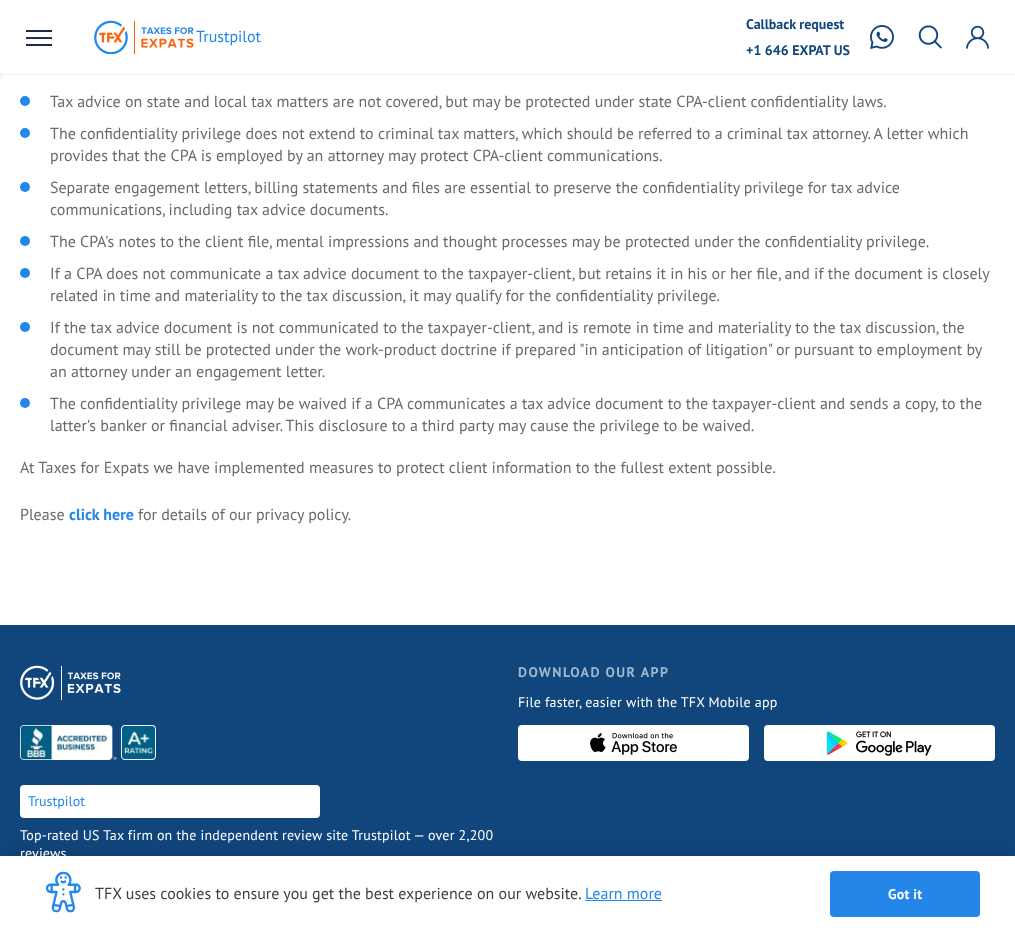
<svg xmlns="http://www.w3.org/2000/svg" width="1015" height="932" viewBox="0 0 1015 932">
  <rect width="100%" height="100%" fill="#fff"/>
  <image x="26" y="30" width="27" height="16" href="img/1.png"/>
  <path d="M0 74h1015v1H0z" fill="#eff0f4"/>
  <path d="M-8 74h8v5H-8z" fill="#00000026" filter="blur(2.5px)"/>
  <image x="94" y="20" width="100" height="34" href="img/2.png"/>
  <image x="870" y="25" width="24" height="24" href="img/3.png"/>
  <image x="918" y="25" width="24" height="24" href="img/4.png"/>
  <image x="966" y="25" width="23" height="24" href="img/5.png"/>
  <circle cx="25" cy="101" r="5" fill="#2586ea"/>
  <circle cx="25" cy="133" r="5" fill="#2586ea"/>
  <circle cx="25" cy="187" r="5" fill="#2586ea"/>
  <circle cx="25" cy="241" r="5" fill="#2586ea"/>
  <circle cx="25" cy="273" r="5" fill="#2586ea"/>
  <circle cx="25" cy="327" r="5" fill="#2586ea"/>
  <circle cx="25" cy="403" r="5" fill="#2586ea"/>
  <path d="M0 625h1015v231H0z" fill="#11467d"/>
  <rect x="518" y="725" width="231" height="36" rx="4" fill="#fff"/>
  <image x="590" y="732" width="87" height="23" href="img/6.png"/>
  <rect x="764" y="725" width="231" height="36" rx="4" fill="#fff"/>
  <image x="826" y="731" width="106" height="25" href="img/7.png"/>
  <image x="20" y="665" width="101" height="35" href="img/8.png"/>
  <image x="20" y="725" width="136" height="35" href="img/9.png"/>
  <rect x="20" y="785" width="300" height="33" rx="4" fill="#fff"/>
  <path d="M3 853h1009v70H3z" fill="#00080e2b" filter="blur(7px)"/>
  <path d="M0 856h1015v76H0z" fill="#fff"/>
  <image x="45" y="871" width="36" height="42" href="img/10.png"/>
  <path d="M585 900h77v1H585z" fill="#2586ea"/>
  <rect x="830" y="871" width="150" height="46" rx="4" fill="#2586ea"/>
  <text x="196" y="42" font-family="PT Sans" font-size="16" fill="#2586ea">Trustpilot</text>
  <g font-family="PT Sans" font-size="14" font-weight="bold" fill="#11467d">
    <text x="746" y="29">Callback request</text>
    <text x="746" y="55">+1 646 EXPAT US</text>
  </g>
  <g font-family="PT Sans" font-size="16" fill="#656b6f">
    <text x="50" y="107">Tax advice on state and local tax matters are not covered, but may be protected under state CPA-client confidentiality laws.</text>
    <text x="50" y="139">The confidentiality privilege does not extend to criminal tax matters, which should be referred to a criminal tax attorney. A letter which</text>
    <text x="50" y="161">provides that the CPA is employed by an attorney may protect CPA-client communications.</text>
    <text x="50" y="193">Separate engagement letters, billing statements and files are essential to preserve the confidentiality privilege for tax advice</text>
    <text x="50" y="215">communications, including tax advice documents.</text>
    <text x="50" y="247">The CPA's notes to the client file, mental impressions and thought processes may be protected under the confidentiality privilege.</text>
    <text x="50" y="279">If a CPA does not communicate a tax advice document to the taxpayer-client, but retains it in his or her file, and if the document is closely</text>
    <text x="50" y="301">related in time and materiality to the tax discussion, it may qualify for the confidentiality privilege.</text>
    <text x="50" y="333">If the tax advice document is not communicated to the taxpayer-client, and is remote in time and materiality to the tax discussion, the</text>
    <text x="50" y="355">document may still be protected under the work-product doctrine if prepared "in anticipation of litigation" or</text>
    <text x="794" y="355">pursuant to employment by</text>
    <text x="50" y="377">an attorney under an engagement letter.</text>
    <text x="50" y="409">The confidentiality privilege may be waived if a CPA communicates a tax advice document to the taxpayer-client and sends a copy, to the</text>
    <text x="50" y="431">latter's banker or financial adviser. This disclosure to a third party may cause the privilege to be waived.</text>
    <text x="20" y="473">At Taxes for Expats we have implemented measures to protect client information to the fullest extent possible.</text>
    <text x="20" y="520">Please</text>
  </g>
  <text x="69" y="520" font-family="PT Sans" font-size="16" font-weight="bold" fill="#2586ea">click here</text>
  <text x="138" y="520" font-family="PT Sans" font-size="16" fill="#656b6f">for details of our privacy policy.</text>
  <text x="518" y="677" font-family="PT Sans" font-size="14" font-weight="bold" letter-spacing="1.4" fill="#a0b5cb">DOWNLOAD OUR APP</text>
  <text x="518" y="707" font-family="PT Sans" font-size="14" letter-spacing="0.2" fill="#fff">File faster, easier with the TFX Mobile app</text>
  <text x="28" y="806" font-family="PT Sans" font-size="14" fill="#2586ea">Trustpilot</text>
  <g font-family="PT Sans" font-size="14" letter-spacing="0.2" fill="#fff">
    <text x="20" y="840">Top-rated US Tax firm on the independent review site Trustpilot — over 2,200</text>
    <text x="20" y="858">reviews</text>
  </g>
  <text x="95" y="899" font-family="PT Sans" font-size="16" fill="#404040">TFX uses cookies to ensure you get the best experience on our website.</text>
  <text x="585" y="899" font-family="PT Sans" font-size="16" fill="#2586ea">Learn more</text>
  <text x="888" y="899" font-family="PT Sans" font-size="14" font-weight="bold" letter-spacing="0.2" fill="#fff">Got it</text>
</svg>
